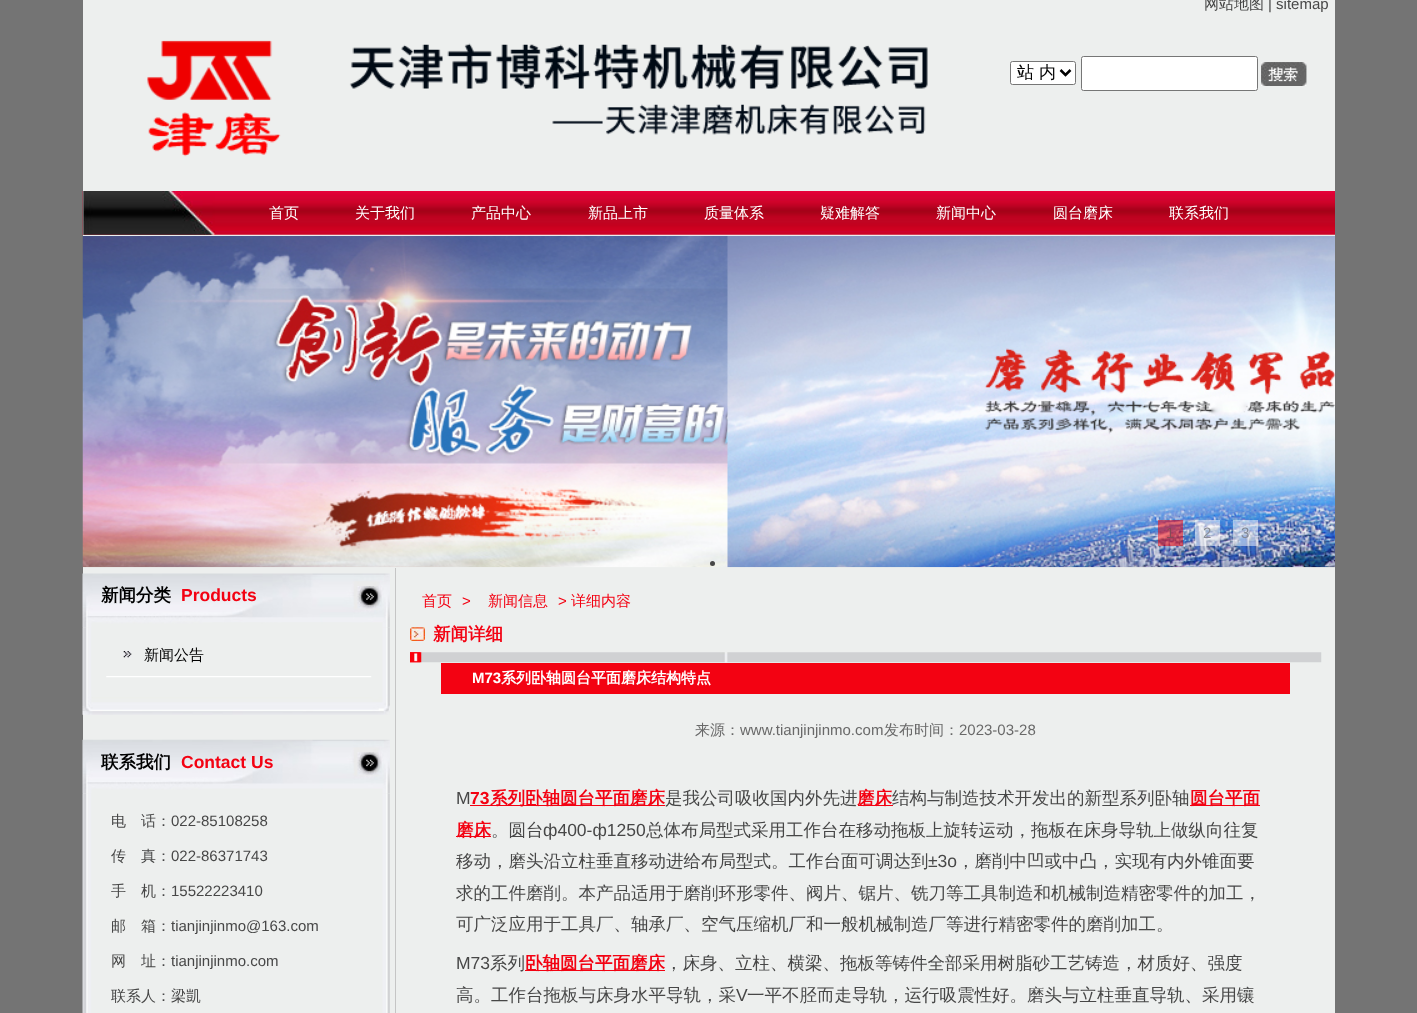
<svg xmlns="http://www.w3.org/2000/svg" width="1417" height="1013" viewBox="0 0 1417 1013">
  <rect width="100%" height="100%" fill="#747474"/>
  <path d="M83 0h1252v1013H83z" fill="#edefee"/>
  <image x="147" y="40" width="781" height="117" href="img/1.png"/>
  <rect x="1010.5" y="61.5" width="65" height="23" rx="2" fill="#fff" stroke="#767676"/>
  <path d="M1060.5 70L1065.5 75L1070.5 70" fill="none" stroke="#000" stroke-width="2.5"/>
  <rect x="1081.5" y="56.5" width="176" height="34" rx="2" fill="#fff" stroke="#767676"/>
  <image x="1261" y="62" width="46" height="24" href="img/2.png"/>
  <image x="1261" y="62" width="46" height="23" href="img/3.png"/>
  <image x="82" y="191" width="1253" height="44" href="img/4.png"/>
  <image x="82" y="191" width="133" height="44" href="img/5.png"/>
  <image x="82" y="236" width="1253" height="332" href="img/6.png"/>
  <circle cx="712.5" cy="563.5" r="2.5" fill="#474747"/>
  <image x="727" y="236" width="608" height="332" href="img/7.png"/>
  <path d="M1158 520h25v26H1158z" fill="#ff000080"/>
  <path d="M1195 520h25v26H1195z" fill="#ffffff80"/>
  <path d="M1233 520h25v26H1233z" fill="#ffffff80"/>
  <path d="M395 568h1v445H395z" fill="#c5c5c5"/>
  <image x="82" y="573" width="308" height="55" href="img/8.png"/>
  <image x="357" y="586" width="25" height="23" href="img/9.png"/>
  <image x="82" y="627" width="308" height="88" href="img/10.png"/>
  <image x="106" y="676" width="266" height="2" href="img/11.png"/>
  <image x="123" y="651" width="9" height="7" href="img/12.png"/>
  <image x="82" y="739" width="308" height="55" href="img/13.png"/>
  <image x="357" y="752" width="25" height="23" href="img/14.png"/>
  <image x="82" y="793" width="308" height="220" href="img/15.png"/>
  <image x="410" y="652" width="912" height="11" href="img/16.png"/>
  <image x="410" y="627" width="15" height="14" href="img/17.png"/>
  <image x="410" y="652" width="12" height="11" href="img/18.png"/>
  <path d="M441 663h849v31H441z" fill="#f30212"/>
  <path d="M470 805h195v1H470z" fill="#f30212"/>
  <path d="M858 805h35v1H858z" fill="#f30212"/>
  <path d="M1190 805h70v1H1190z" fill="#f30212"/>
  <path d="M456 836h35v1H456z" fill="#f30212"/>
  <path d="M525 970h140v1H525z" fill="#f30212"/>
  <text x="1204" y="9" font-family="WenQuanYi Zen Hei" font-size="15" font-weight="500" fill="#474747">网站地图</text>
  <text x="1268" y="9" font-family="Liberation Sans" font-size="15" fill="#474747">| sitemap</text>
  <text x="1017" y="78" font-family="WenQuanYi Zen Hei" font-size="17" font-weight="500" fill="#000">站 内</text>
  <g font-family="WenQuanYi Zen Hei" font-size="15" font-weight="500" fill="#fff">
    <text x="269" y="218">首页</text>
    <text x="355" y="218">关于我们</text>
    <text x="471" y="218">产品中心</text>
    <text x="588" y="218">新品上市</text>
    <text x="704" y="218">质量体系</text>
    <text x="820" y="218">疑难解答</text>
    <text x="936" y="218">新闻中心</text>
    <text x="1053" y="218">圆台磨床</text>
    <text x="1169" y="218">联系我们</text>
  </g>
  <text x="1166" y="538" font-family="Liberation Sans" font-size="15" fill="#834b56">1</text>
  <text x="1203" y="538" font-family="Liberation Sans" font-size="15" fill="#898c95">2</text>
  <text x="1241" y="538" font-family="Liberation Sans" font-size="15" fill="#828895">3</text>
  <text x="101" y="601" font-family="WenQuanYi Zen Hei" font-size="17.5" font-weight="bold" fill="#000">新闻分类</text>
  <text x="181" y="601" font-family="Liberation Sans" font-size="17.5" font-weight="bold" fill="#f30212">Products</text>
  <text x="144" y="660" font-family="WenQuanYi Zen Hei" font-size="15" font-weight="500" fill="#000">新闻公告</text>
  <text x="101" y="768" font-family="WenQuanYi Zen Hei" font-size="17.5" font-weight="bold" fill="#000">联系我们</text>
  <text x="181" y="768" font-family="Liberation Sans" font-size="17.5" font-weight="bold" fill="#f30212">Contact Us</text>
  <text x="111" y="826" font-family="WenQuanYi Zen Hei" font-size="15" font-weight="500" fill="#474747">电　话：</text>
  <text x="171" y="826" font-family="Liberation Sans" font-size="15" fill="#474747">022-85108258</text>
  <text x="111" y="861" font-family="WenQuanYi Zen Hei" font-size="15" font-weight="500" fill="#474747">传　真：</text>
  <text x="171" y="861" font-family="Liberation Sans" font-size="15" fill="#474747">022-86371743</text>
  <text x="111" y="896" font-family="WenQuanYi Zen Hei" font-size="15" font-weight="500" fill="#474747">手　机：</text>
  <text x="171" y="896" font-family="Liberation Sans" font-size="15" fill="#474747">15522223410</text>
  <text x="111" y="931" font-family="WenQuanYi Zen Hei" font-size="15" font-weight="500" fill="#474747">邮　箱：</text>
  <text x="171" y="931" font-family="Liberation Sans" font-size="15" fill="#474747">tianjinjinmo@163.com</text>
  <text x="111" y="966" font-family="WenQuanYi Zen Hei" font-size="15" font-weight="500" fill="#474747">网　址：</text>
  <text x="171" y="966" font-family="Liberation Sans" font-size="15" fill="#474747">tianjinjinmo.com</text>
  <text x="111" y="1001" font-family="WenQuanYi Zen Hei" font-size="15" font-weight="500" fill="#474747">联系人：梁凱</text>
  <text x="422" y="606" font-family="WenQuanYi Zen Hei" font-size="15" font-weight="500" fill="#f30212">首页</text>
  <text x="462" y="606" font-family="Liberation Sans" font-size="15" fill="#f30212">&gt;</text>
  <text x="488" y="606" font-family="WenQuanYi Zen Hei" font-size="15" font-weight="500" fill="#f30212">新闻信息</text>
  <text x="558" y="606" font-family="Liberation Sans" font-size="15" fill="#f30212">&gt;</text>
  <text x="571" y="606" font-family="WenQuanYi Zen Hei" font-size="15" font-weight="500" fill="#f30212">详细内容</text>
  <text x="433" y="640" font-family="WenQuanYi Zen Hei" font-size="17.5" font-weight="bold" fill="#f30212">新闻详细</text>
  <text x="472" y="683" font-family="Liberation Sans" font-size="15" font-weight="bold" fill="#fff">M73</text>
  <text x="501" y="683" font-family="WenQuanYi Zen Hei" font-size="15" font-weight="bold" fill="#fff">系列卧轴圆台平面磨床结构特点</text>
  <text x="695" y="735" font-family="WenQuanYi Zen Hei" font-size="15" font-weight="500" fill="#696969">来源：</text>
  <text x="740" y="735" font-family="Liberation Sans" font-size="15" fill="#696969">www.tianjinjinmo.com</text>
  <text x="884" y="735" font-family="WenQuanYi Zen Hei" font-size="15" font-weight="500" fill="#696969">发布时间：</text>
  <text x="959" y="735" font-family="Liberation Sans" font-size="15" fill="#696969">2023-03-28</text>
  <text x="456" y="804" font-family="Liberation Sans" font-size="17.5" fill="#474747">M</text>
  <text x="470" y="804" font-family="Liberation Sans" font-size="17.5" font-weight="bold" fill="#f30212">73</text>
  <text x="490" y="804" font-family="WenQuanYi Zen Hei" font-size="17.5" font-weight="bold" fill="#f30212">系列卧轴圆台平面磨床</text>
  <text x="665" y="804" font-family="WenQuanYi Zen Hei" font-size="17.5" font-weight="500" fill="#474747">是我公司吸收国内外先进</text>
  <text x="857" y="804" font-family="WenQuanYi Zen Hei" font-size="17.5" font-weight="bold" fill="#f30212">磨床</text>
  <text x="892" y="804" font-family="WenQuanYi Zen Hei" font-size="17.5" font-weight="500" fill="#474747">结构与制造技术开发出的新型系列卧轴</text>
  <g font-family="WenQuanYi Zen Hei" font-size="17.5" font-weight="bold" fill="#f30212">
    <text x="1190" y="804">圆台平面</text>
    <text x="456" y="836">磨床</text>
  </g>
  <text x="491" y="836" font-family="WenQuanYi Zen Hei" font-size="17.5" font-weight="500" fill="#474747">。圆台</text>
  <text x="543" y="836" font-family="Liberation Sans" font-size="17.5" fill="#474747">ф400-ф1250</text>
  <g font-family="WenQuanYi Zen Hei" font-size="17.5" font-weight="500" fill="#474747">
    <text x="646" y="836">总体布局型式采用工作台在移动拖板上旋转运动，拖板在床身导轨上做纵向往复</text>
    <text x="456" y="867">移动，磨头沿立柱垂直移动进给布局型式。工作台面可调达到</text>
  </g>
  <text x="928" y="867" font-family="Liberation Sans" font-size="17.5" fill="#474747">±3o</text>
  <g font-family="WenQuanYi Zen Hei" font-size="17.5" font-weight="500" fill="#474747">
    <text x="957" y="867">，磨削中凹或中凸，实现有内外锥面要</text>
    <text x="456" y="899">求的工件磨削。本产品适用于磨削环形零件、阀片、锯片、铣刀等工具制造和机械制造精密零件的加工，</text>
    <text x="456" y="930">可广泛应用于工具厂、轴承厂、空气压缩机厂和一般机械制造厂等进行精密零件的磨削加工。</text>
  </g>
  <text x="456" y="969" font-family="Liberation Sans" font-size="17.5" fill="#474747">M73</text>
  <text x="490" y="969" font-family="WenQuanYi Zen Hei" font-size="17.5" font-weight="500" fill="#474747">系列</text>
  <text x="525" y="969" font-family="WenQuanYi Zen Hei" font-size="17.5" font-weight="bold" fill="#f30212">卧轴圆台平面磨床</text>
  <g font-family="WenQuanYi Zen Hei" font-size="17.5" font-weight="500" fill="#474747">
    <text x="665" y="969">，床身、立柱、横梁、拖板等铸件全部采用树脂砂工艺铸造，材质好、强度</text>
    <text x="456" y="1001">高。工作台拖板与床身水平导轨，采</text>
  </g>
  <text x="736" y="1001" font-family="Liberation Sans" font-size="17.5" fill="#474747">V</text>
  <text x="747" y="1001" font-family="WenQuanYi Zen Hei" font-size="17.5" font-weight="500" fill="#474747">一平不胫而走导轨，运行吸震性好。磨头与立柱垂直导轨、采用镶</text>
</svg>
